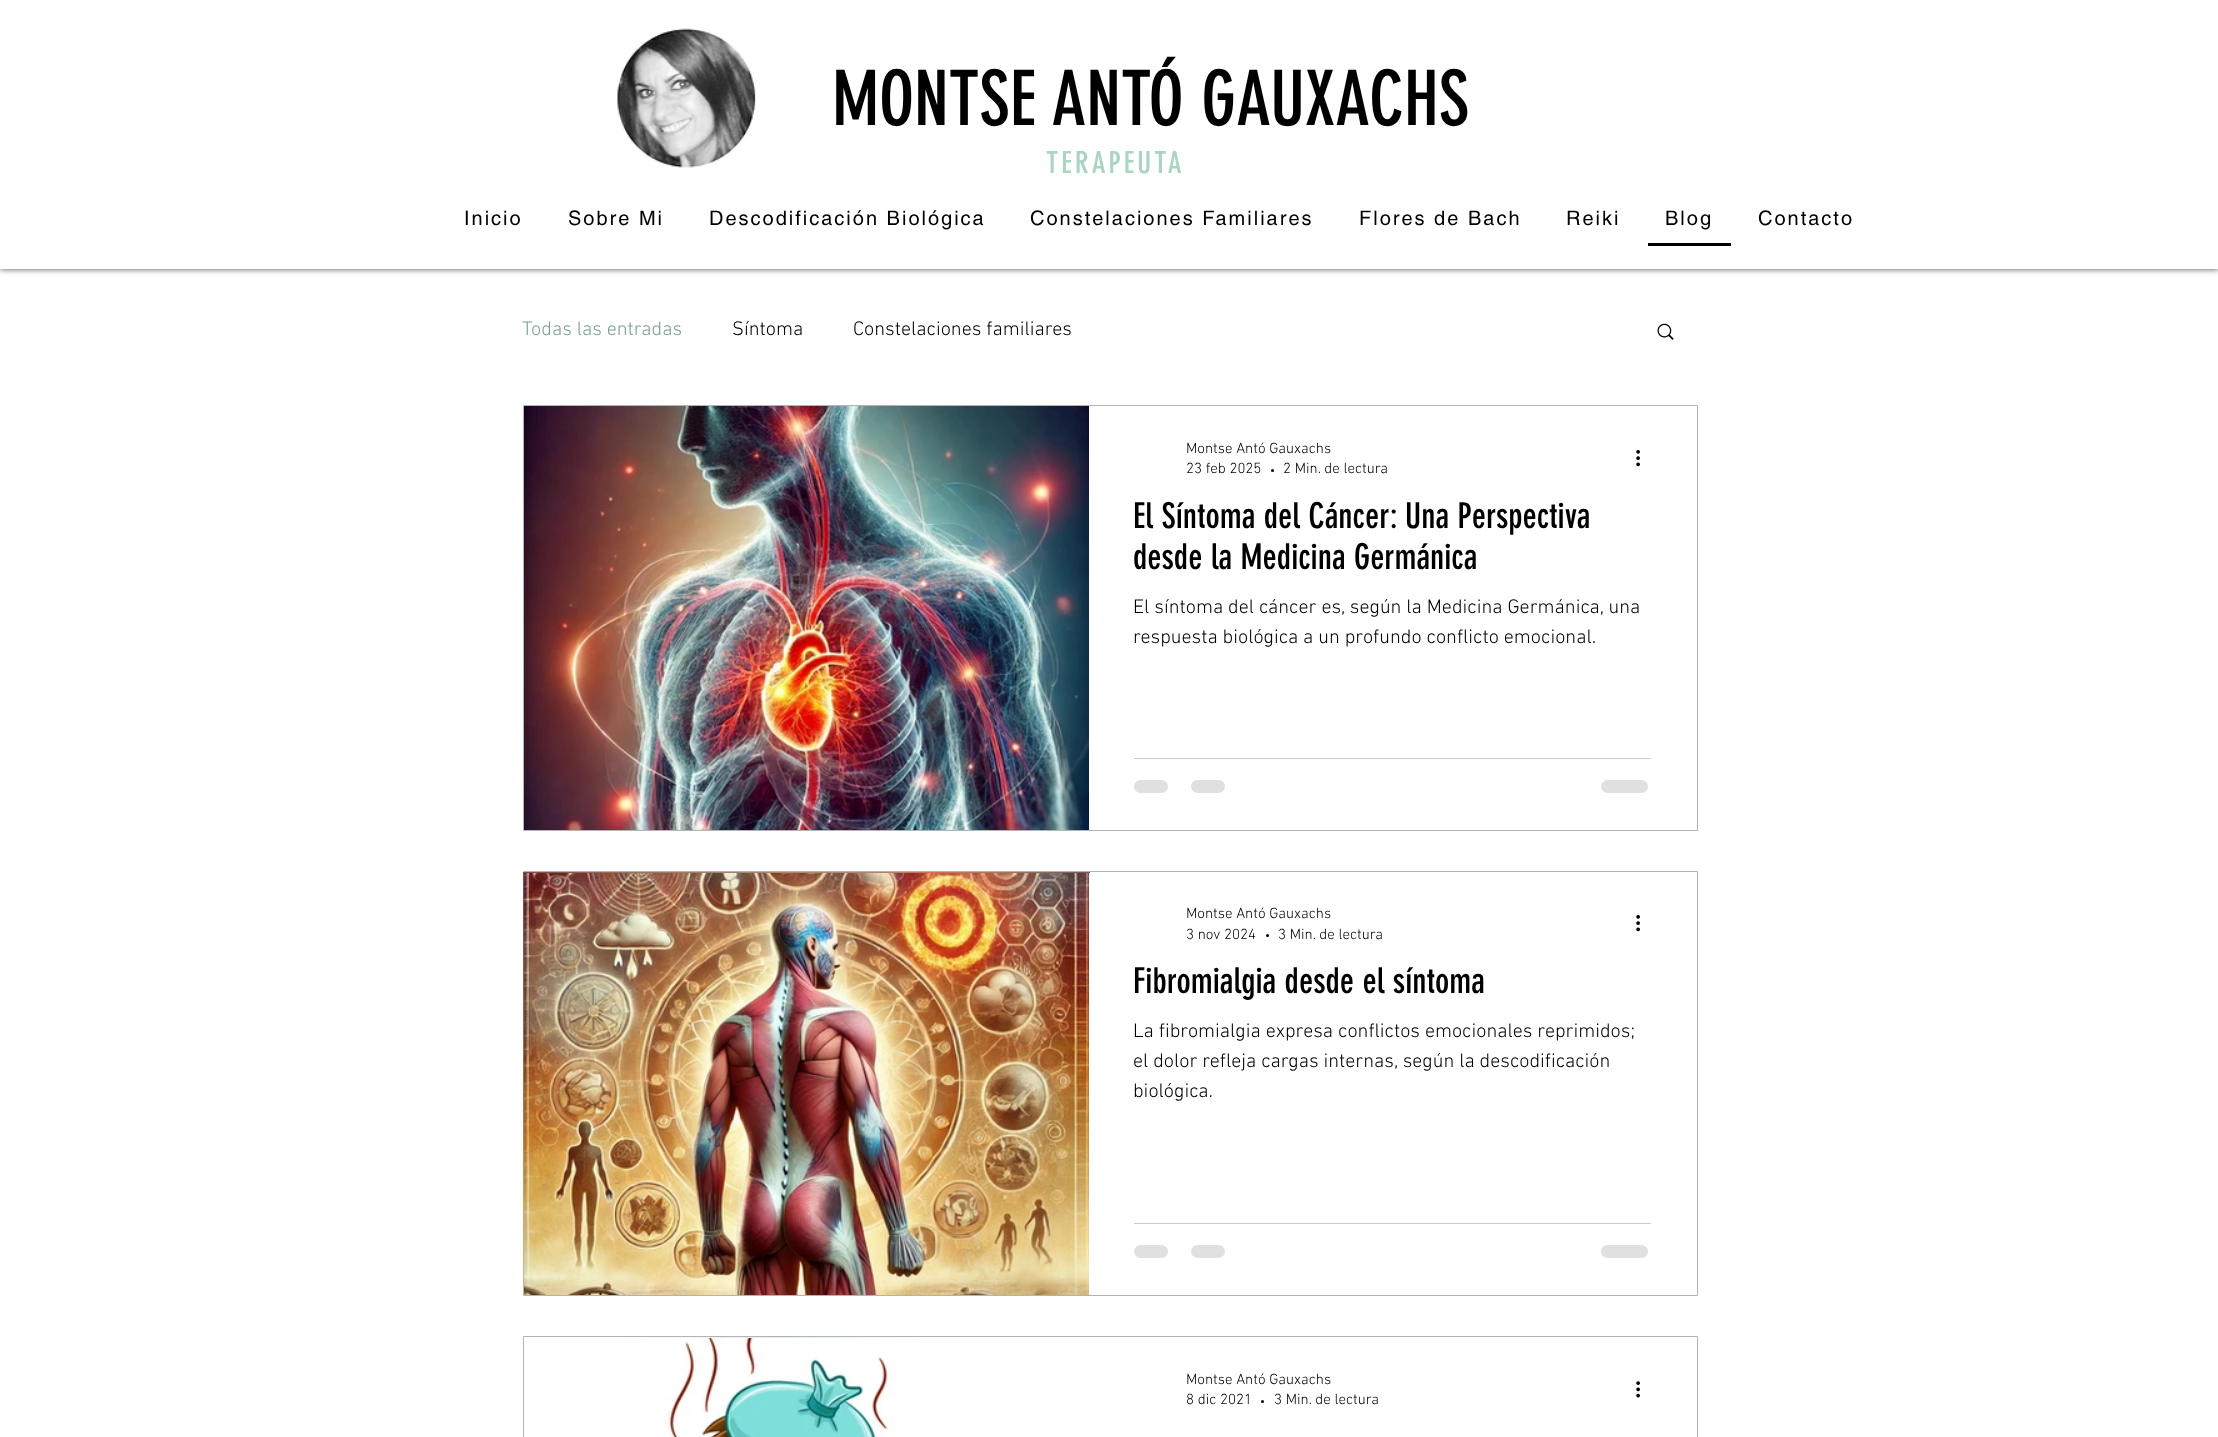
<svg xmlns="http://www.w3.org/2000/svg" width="2218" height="1437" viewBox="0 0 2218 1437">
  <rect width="100%" height="100%" fill="#fff"/>
  <path d="M0 0h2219v269H0z" fill="#000000b3" filter="blur(3px)"/>
  <path d="M0 0h2218v269H0z" fill="#fff"/>
  <image x="617" y="28" width="139" height="140" href="img/1.png"/>
  <path d="M1648 243h83v3H1648z" fill="#000"/>
  <image x="1657" y="323" width="17" height="17" href="img/2.png"/>
  <path d="M523.5 405.5h1174v425H523.5z" fill="none" stroke="#b3b3b3"/>
  <image x="524" y="406" width="565" height="424" href="img/3.png"/>
  <circle cx="1272.5" cy="470.5" r="1.5" fill="#000"/>
  <image x="1636" y="450" width="4" height="17" href="img/4.png"/>
  <path d="M1134 758h517v1H1134z" fill="#ccc"/>
  <rect x="1134" y="780" width="34" height="13" rx="6.5" fill="#e0e0e0"/>
  <rect x="1191" y="780" width="34" height="13" rx="6.5" fill="#e0e0e0"/>
  <rect x="1601" y="780" width="47" height="13" rx="6.5" fill="#e0e0e0"/>
  <path d="M523.5 871.5h1174v424H523.5z" fill="none" stroke="#b3b3b3"/>
  <image x="523" y="872" width="567" height="423" href="img/5.png"/>
  <image x="524" y="873" width="565" height="422" href="img/6.png"/>
  <path d="M1089 873h1v422H1089z" fill="#fff"/>
  <circle cx="1267.5" cy="935.5" r="1.5" fill="#000"/>
  <image x="1636" y="915" width="4" height="17" href="img/4.png"/>
  <path d="M1134 1223h517v1H1134z" fill="#ccc"/>
  <rect x="1134" y="1245" width="34" height="13" rx="6.5" fill="#e0e0e0"/>
  <rect x="1191" y="1245" width="34" height="13" rx="6.5" fill="#e0e0e0"/>
  <rect x="1601" y="1245" width="47" height="13" rx="6.5" fill="#e0e0e0"/>
  <path d="M523.5 1336.5h1174v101H523.5z" fill="none" stroke="#b3b3b3"/>
  <image x="626" y="1337" width="331" height="1" href="img/7.png"/>
  <image x="626" y="1338" width="331" height="99" href="img/8.png"/>
  <circle cx="1262.5" cy="1401.5" r="1.5" fill="#000"/>
  <image x="1636" y="1381" width="4" height="17" href="img/9.png"/>
  <text x="832" y="125" font-family="'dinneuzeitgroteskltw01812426'" font-size="75" fill="#000">MONTSE ANTÓ GAUXACHS</text>
  <text x="1046" y="173" font-family="'dinneuzeitgroteskltw01812426'" font-size="30" letter-spacing="3" fill="#aad6c1">TERAPEUTA</text>
  <g font-family="helvetica" font-size="20" letter-spacing="2" fill="#000">
    <text x="464" y="225">Inicio</text>
    <text x="568" y="225">Sobre Mi</text>
    <text x="709" y="225">Descodificación Biológica</text>
    <text x="1030" y="225">Constelaciones Familiares</text>
    <text x="1359" y="225">Flores de Bach</text>
    <text x="1566" y="225">Reiki</text>
    <text x="1665" y="225">Blog</text>
    <text x="1758" y="225">Contacto</text>
  </g>
  <text x="522" y="335" font-family="'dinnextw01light'" font-size="20" font-weight="300" fill="#7fa191">Todas las entradas</text>
  <g font-family="'dinnextw01light'" font-size="20" font-weight="300" fill="#000">
    <text x="732" y="335">Síntoma</text>
    <text x="853" y="335">Constelaciones familiares</text>
  </g>
  <g font-family="'dinnextw01light'" font-size="15" font-weight="300" fill="#000">
    <text x="1186" y="453">Montse Antó Gauxachs</text>
    <text x="1186" y="473">23 feb 2025</text>
    <text x="1283" y="473">2 Min. de lectura</text>
  </g>
  <g font-family="'dinneuzeitgroteskltw01812426'" font-size="35" fill="#000">
    <text x="1133" y="528">El Síntoma del Cáncer: Una Perspectiva</text>
    <text x="1133" y="569">desde la Medicina Germánica</text>
  </g>
  <g font-family="'dinnextw01light'" font-size="20" font-weight="300" fill="#000">
    <text x="1133" y="613">El síntoma del cáncer es, según la Medicina Germánica, una</text>
    <text x="1133" y="643">respuesta biológica a un profundo conflicto emocional.</text>
  </g>
  <g font-family="'dinnextw01light'" font-size="15" font-weight="300" fill="#000">
    <text x="1186" y="918">Montse Antó Gauxachs</text>
    <text x="1186" y="939">3 nov 2024</text>
    <text x="1278" y="939">3 Min. de lectura</text>
  </g>
  <text x="1133" y="993" font-family="'dinneuzeitgroteskltw01812426'" font-size="35" fill="#000">Fibromialgia desde el síntoma</text>
  <g font-family="'dinnextw01light'" font-size="20" font-weight="300" fill="#000">
    <text x="1133" y="1037">La fibromialgia expresa conflictos emocionales reprimidos;</text>
    <text x="1133" y="1067">el dolor refleja cargas internas, según la descodificación</text>
    <text x="1133" y="1097">biológica.</text>
  </g>
  <g font-family="'dinnextw01light'" font-size="15" font-weight="300" fill="#000">
    <text x="1186" y="1384">Montse Antó Gauxachs</text>
    <text x="1186" y="1404">8 dic 2021</text>
    <text x="1274" y="1404">3 Min. de lectura</text>
  </g>
</svg>
